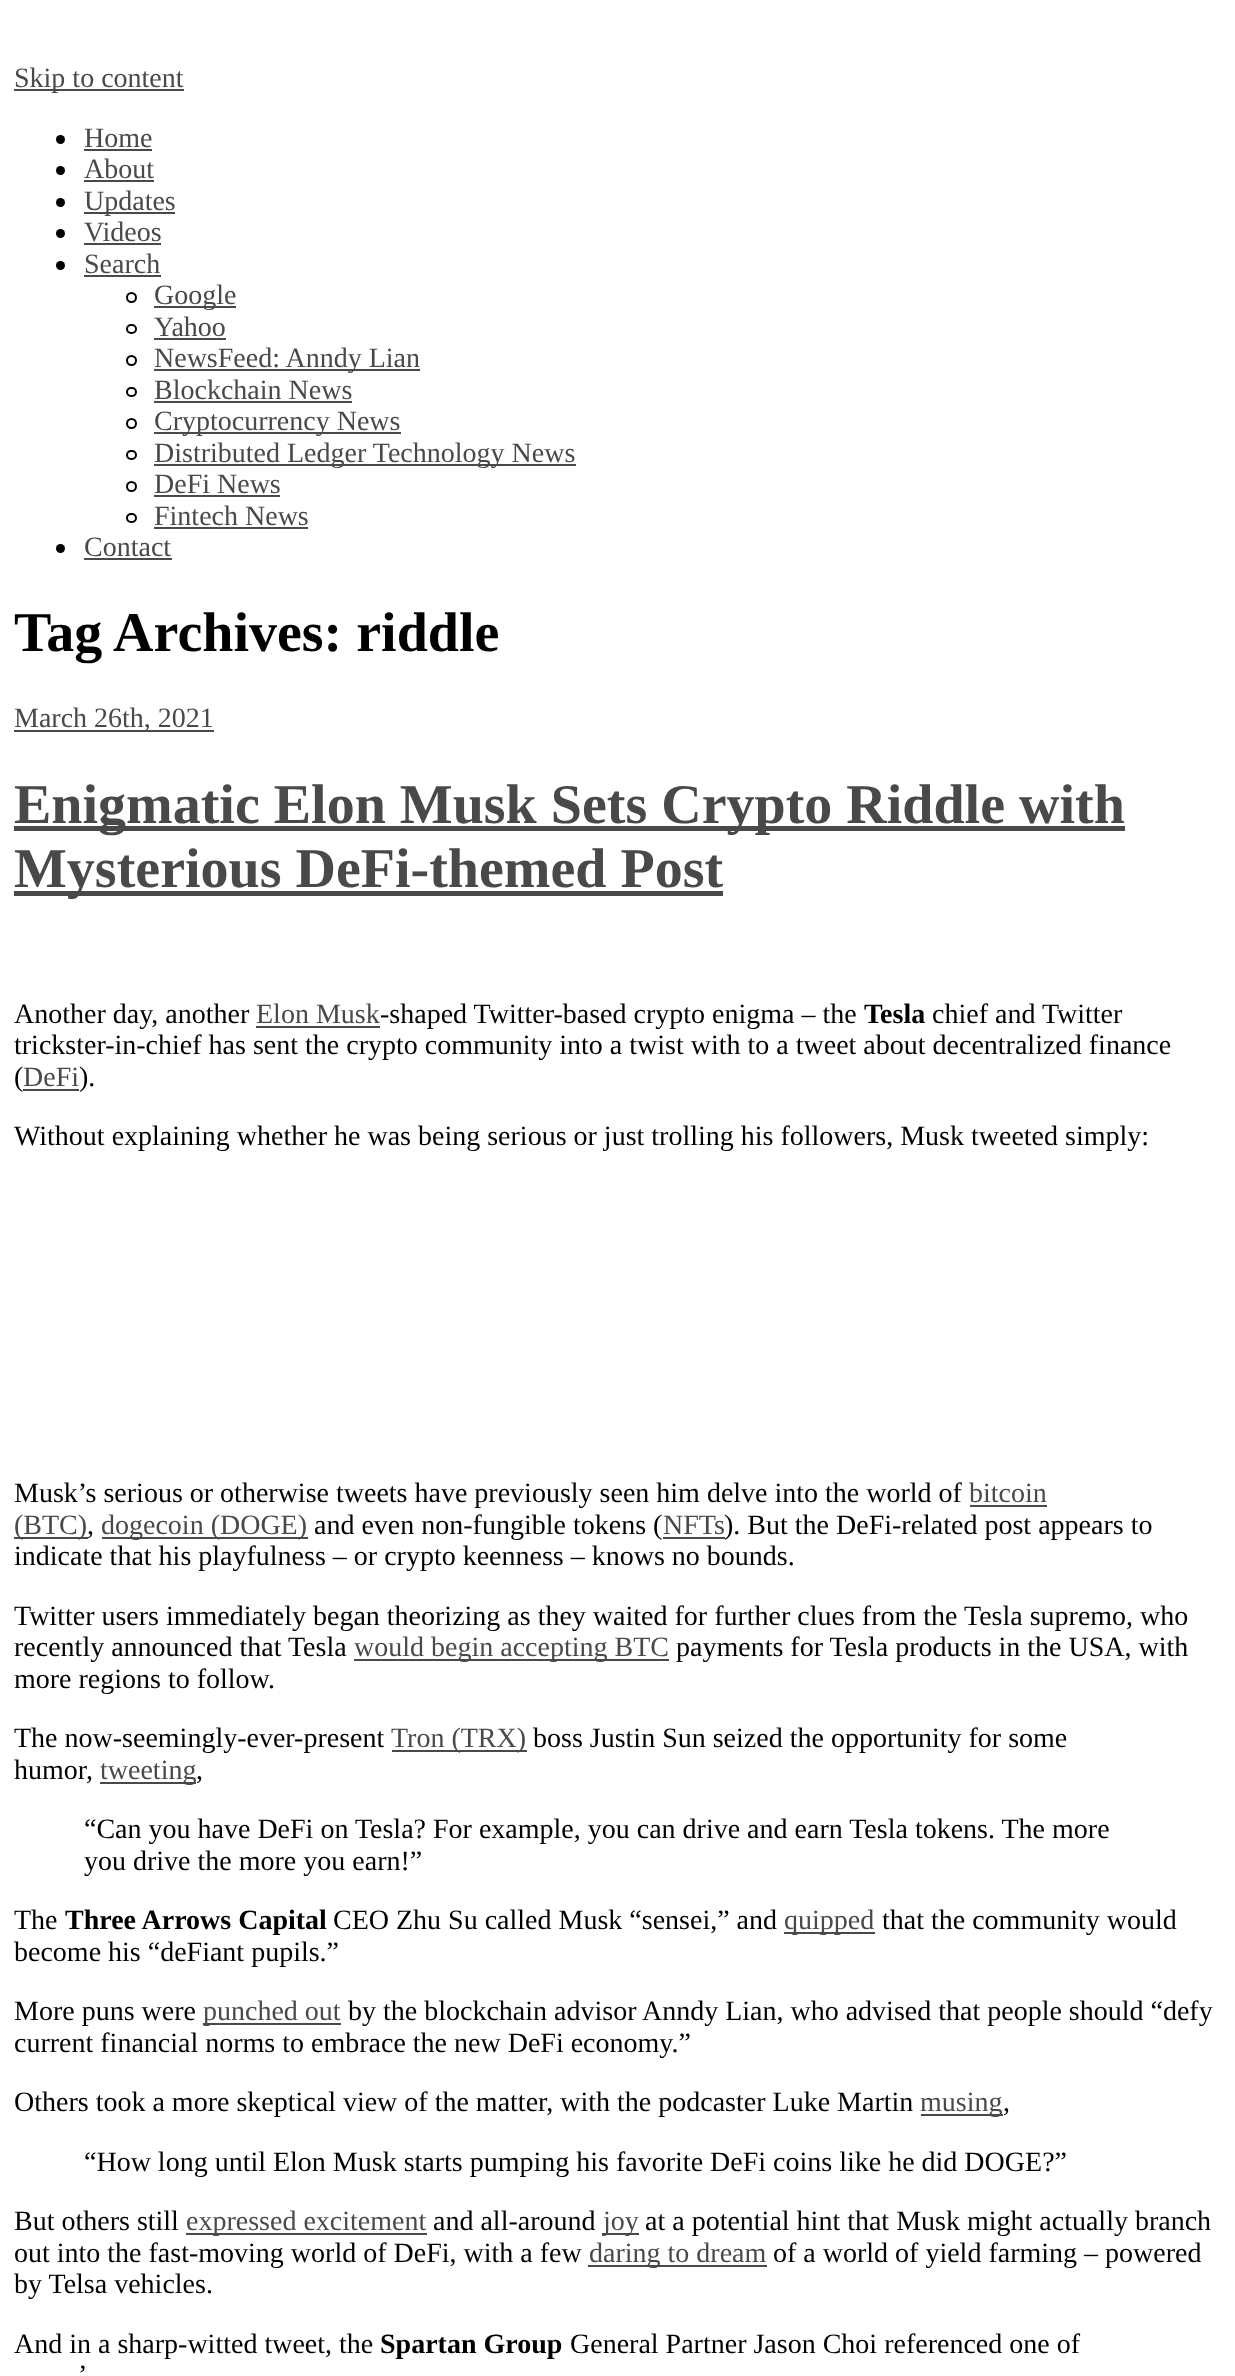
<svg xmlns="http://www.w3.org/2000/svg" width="1235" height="2376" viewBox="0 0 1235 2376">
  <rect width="100%" height="100%" fill="#fff"/>
  <path d="M14 89h170v2H14z" fill="#494949"/>
  <circle cx="60.5" cy="139.5" r="4.5" fill="#000"/>
  <path d="M84 149h68v2H84z" fill="#494949"/>
  <circle cx="60.5" cy="170.5" r="4.5" fill="#000"/>
  <path d="M84 180h70v2H84z" fill="#494949"/>
  <circle cx="60.5" cy="202.5" r="4.5" fill="#000"/>
  <path d="M84 212h91v2H84z" fill="#494949"/>
  <circle cx="60.5" cy="233.5" r="4.5" fill="#000"/>
  <path d="M84 243h77v2H84z" fill="#494949"/>
  <circle cx="60.5" cy="265.5" r="4.5" fill="#000"/>
  <path d="M84 275h77v2H84z" fill="#494949"/>
  <circle cx="131.5" cy="297.5" r="4.5" fill="none" stroke="#000" stroke-width="2"/>
  <path d="M154 306h82v2H154z" fill="#494949"/>
  <rect x="127" y="325" width="9" height="8" rx="4" fill="none" stroke="#000" stroke-width="2"/>
  <path d="M154 338h72v2H154z" fill="#494949"/>
  <circle cx="131.5" cy="360.5" r="4.5" fill="none" stroke="#000" stroke-width="2"/>
  <path d="M154 369h266v2H154z" fill="#494949"/>
  <rect x="127" y="388" width="9" height="8" rx="4" fill="none" stroke="#000" stroke-width="2"/>
  <path d="M154 401h198v2H154z" fill="#494949"/>
  <circle cx="131.5" cy="423.5" r="4.5" fill="none" stroke="#000" stroke-width="2"/>
  <path d="M154 432h247v2H154z" fill="#494949"/>
  <rect x="127" y="451" width="9" height="8" rx="4" fill="none" stroke="#000" stroke-width="2"/>
  <path d="M154 464h422v2H154z" fill="#494949"/>
  <circle cx="131.5" cy="486.5" r="4.5" fill="none" stroke="#000" stroke-width="2"/>
  <path d="M154 495h126v2H154z" fill="#494949"/>
  <rect x="127" y="514" width="9" height="8" rx="4" fill="none" stroke="#000" stroke-width="2"/>
  <path d="M154 527h154v2H154z" fill="#494949"/>
  <circle cx="60.5" cy="548.5" r="4.5" fill="#000"/>
  <path d="M84 558h88v2H84z" fill="#494949"/>
  <path d="M14 730h200v2H14z" fill="#494949"/>
  <path d="M14 826h1111v5H14z" fill="#494949"/>
  <path d="M14 891h709v5H14z" fill="#494949"/>
  <path d="M256 1026h124v2H256z" fill="#494949"/>
  <path d="M23 1089h56v2H23z" fill="#494949"/>
  <path d="M970 1505h77v2H970z" fill="#494949"/>
  <path d="M14 1537h74v2H14z" fill="#494949"/>
  <path d="M102 1537h206v2H102z" fill="#494949"/>
  <path d="M663 1537h62v2H663z" fill="#494949"/>
  <path d="M354 1659h315v2H354z" fill="#494949"/>
  <path d="M392 1750h135v2H392z" fill="#494949"/>
  <path d="M100 1782h96v2H100z" fill="#494949"/>
  <path d="M784 1932h91v2H784z" fill="#494949"/>
  <path d="M203 2023h138v2H203z" fill="#494949"/>
  <path d="M921 2114h82v2H921z" fill="#494949"/>
  <path d="M186 2233h241v2H186z" fill="#494949"/>
  <path d="M602 2233h37v2H602z" fill="#494949"/>
  <path d="M588 2265h179v2H588z" fill="#494949"/>
  <g font-family="Liberation Serif" font-size="28" fill="#494949">
    <text x="14" y="87">Skip to content</text>
    <text x="84" y="147">Home</text>
    <text x="84" y="178">About</text>
    <text x="84" y="210">Updates</text>
    <text x="84" y="241">Videos</text>
    <text x="84" y="273">Search</text>
    <text x="154" y="304">Google</text>
    <text x="154" y="336">Yahoo</text>
    <text x="154" y="367">NewsFeed: Anndy Lian</text>
    <text x="154" y="399">Blockchain News</text>
    <text x="154" y="430">Cryptocurrency News</text>
    <text x="154" y="462">Distributed Ledger Technology News</text>
    <text x="154" y="493">DeFi News</text>
    <text x="154" y="525">Fintech News</text>
    <text x="84" y="556">Contact</text>
  </g>
  <text x="14" y="651" font-family="Liberation Serif" font-size="56" font-weight="bold" fill="#000">Tag Archives: riddle</text>
  <text x="14" y="727" font-family="Liberation Serif" font-size="28" fill="#494949">March 26th, 2021</text>
  <g font-family="Liberation Serif" font-size="56" font-weight="bold" fill="#494949">
    <text x="14" y="823">Enigmatic Elon Musk Sets Crypto Riddle with</text>
    <text x="14" y="887">Mysterious DeFi-themed Post</text>
  </g>
  <text x="14" y="1023" font-family="Liberation Serif" font-size="28" fill="#000">Another day, another</text>
  <text x="256" y="1023" font-family="Liberation Serif" font-size="28" fill="#494949">Elon Musk</text>
  <text x="380" y="1023" font-family="Liberation Serif" font-size="28" fill="#000">-shaped Twitter-based crypto enigma – the</text>
  <text x="864" y="1023" font-family="Liberation Serif" font-size="28" font-weight="bold" fill="#000">Tesla</text>
  <g font-family="Liberation Serif" font-size="28" fill="#000">
    <text x="932" y="1023">chief and Twitter</text>
    <text x="14" y="1054">trickster-in-chief has sent the crypto community into a twist with to a tweet about decentralized finance</text>
    <text x="14" y="1086">(</text>
  </g>
  <text x="23" y="1086" font-family="Liberation Serif" font-size="28" fill="#494949">DeFi</text>
  <g font-family="Liberation Serif" font-size="28" fill="#000">
    <text x="79" y="1086">).</text>
    <text x="14" y="1145">Without explaining whether he was being serious or just trolling his followers, Musk tweeted simply:</text>
    <text x="14" y="1502">Musk’s serious or otherwise tweets have previously seen him delve into the world of</text>
  </g>
  <g font-family="Liberation Serif" font-size="28" fill="#494949">
    <text x="969" y="1502">bitcoin</text>
    <text x="14" y="1534">(BTC)</text>
  </g>
  <text x="87" y="1534" font-family="Liberation Serif" font-size="28" fill="#000">,</text>
  <text x="101" y="1534" font-family="Liberation Serif" font-size="28" fill="#494949">dogecoin (DOGE)</text>
  <text x="314" y="1534" font-family="Liberation Serif" font-size="28" fill="#000">and even non-fungible tokens (</text>
  <text x="663" y="1534" font-family="Liberation Serif" font-size="28" fill="#494949">NFTs</text>
  <g font-family="Liberation Serif" font-size="28" fill="#000">
    <text x="724" y="1534">). But the DeFi-related post appears to</text>
    <text x="14" y="1565">indicate that his playfulness – or crypto keenness – knows no bounds.</text>
    <text x="14" y="1625">Twitter users immediately began theorizing as they waited for further clues from the Tesla supremo, who</text>
    <text x="14" y="1656">recently announced that Tesla</text>
  </g>
  <text x="354" y="1656" font-family="Liberation Serif" font-size="28" fill="#494949">would begin accepting BTC</text>
  <g font-family="Liberation Serif" font-size="28" fill="#000">
    <text x="676" y="1656">payments for Tesla products in the USA, with</text>
    <text x="14" y="1688">more regions to follow.</text>
    <text x="14" y="1747">The now-seemingly-ever-present</text>
  </g>
  <text x="391" y="1747" font-family="Liberation Serif" font-size="28" fill="#494949">Tron (TRX)</text>
  <g font-family="Liberation Serif" font-size="28" fill="#000">
    <text x="533" y="1747">boss Justin Sun seized the opportunity for some</text>
    <text x="14" y="1779">humor,</text>
  </g>
  <text x="100" y="1779" font-family="Liberation Serif" font-size="28" fill="#494949">tweeting</text>
  <g font-family="Liberation Serif" font-size="28" fill="#000">
    <text x="196" y="1779">,</text>
    <text x="84" y="1838">“Can you have DeFi on Tesla? For example, you can drive and earn Tesla tokens. The more</text>
    <text x="84" y="1870">you drive the more you earn!”</text>
    <text x="14" y="1929">The</text>
  </g>
  <text x="65" y="1929" font-family="Liberation Serif" font-size="28" font-weight="bold" fill="#000">Three Arrows Capital</text>
  <text x="333" y="1929" font-family="Liberation Serif" font-size="28" fill="#000">CEO Zhu Su called Musk “sensei,” and</text>
  <text x="784" y="1929" font-family="Liberation Serif" font-size="28" fill="#494949">quipped</text>
  <g font-family="Liberation Serif" font-size="28" fill="#000">
    <text x="882" y="1929">that the community would</text>
    <text x="14" y="1961">become his “deFiant pupils.”</text>
    <text x="14" y="2020">More puns were</text>
  </g>
  <text x="203" y="2020" font-family="Liberation Serif" font-size="28" fill="#494949">punched out</text>
  <g font-family="Liberation Serif" font-size="28" fill="#000">
    <text x="348" y="2020">by the blockchain advisor Anndy Lian, who advised that people should “defy</text>
    <text x="14" y="2052">current financial norms to embrace the new DeFi economy.”</text>
    <text x="14" y="2111">Others took a more skeptical view of the matter, with the podcaster Luke Martin</text>
  </g>
  <text x="920" y="2111" font-family="Liberation Serif" font-size="28" fill="#494949">musing</text>
  <g font-family="Liberation Serif" font-size="28" fill="#000">
    <text x="1003" y="2111">,</text>
    <text x="84" y="2171">“How long until Elon Musk starts pumping his favorite DeFi coins like he did DOGE?”</text>
    <text x="14" y="2230">But others still</text>
  </g>
  <text x="186" y="2230" font-family="Liberation Serif" font-size="28" fill="#494949">expressed excitement</text>
  <text x="433" y="2230" font-family="Liberation Serif" font-size="28" fill="#000">and all-around</text>
  <text x="603" y="2230" font-family="Liberation Serif" font-size="28" fill="#494949">joy</text>
  <g font-family="Liberation Serif" font-size="28" fill="#000">
    <text x="645" y="2230">at a potential hint that Musk might actually branch</text>
    <text x="14" y="2262">out into the fast-moving world of DeFi, with a few</text>
  </g>
  <text x="589" y="2262" font-family="Liberation Serif" font-size="28" fill="#494949">daring to dream</text>
  <g font-family="Liberation Serif" font-size="28" fill="#000">
    <text x="773" y="2262">of a world of yield farming – powered</text>
    <text x="14" y="2293">by Telsa vehicles.</text>
    <text x="14" y="2353">And in a sharp-witted tweet, the</text>
  </g>
  <text x="380" y="2353" font-family="Liberation Serif" font-size="28" font-weight="bold" fill="#000">Spartan Group</text>
  <g font-family="Liberation Serif" font-size="28" fill="#000">
    <text x="570" y="2353">General Partner Jason Choi referenced one of</text>
    <text x="78" y="2384">’</text>
  </g>
</svg>
